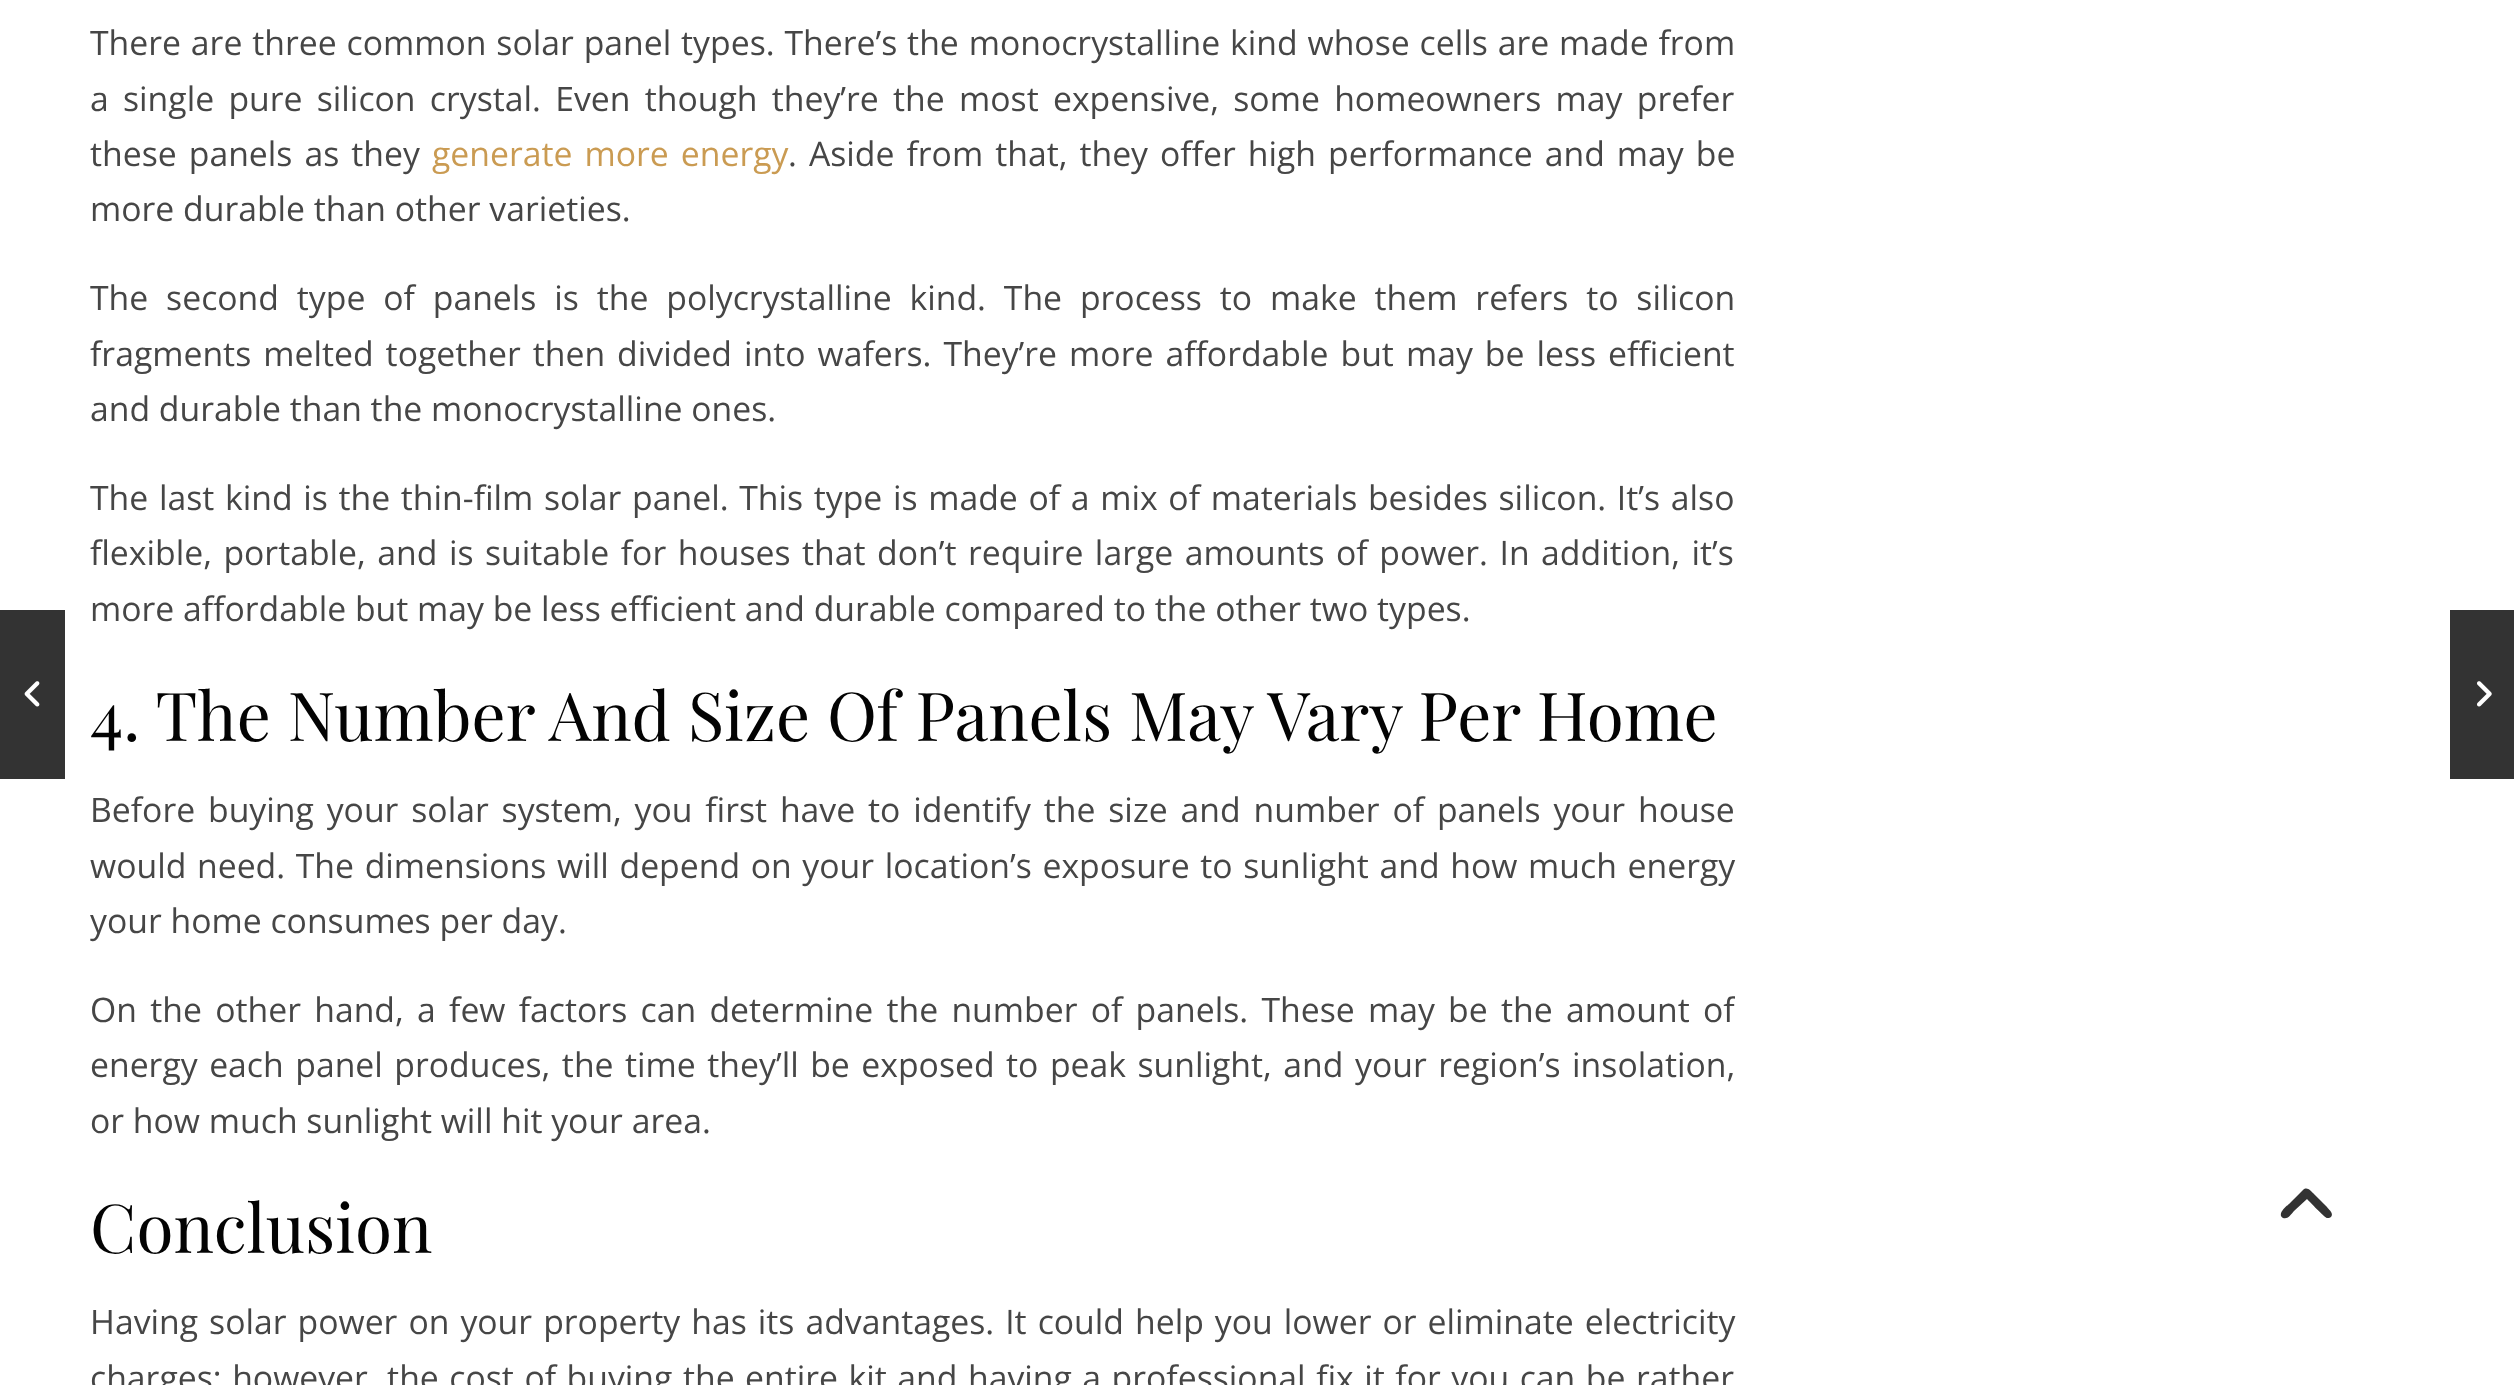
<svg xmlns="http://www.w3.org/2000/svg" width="2514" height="1385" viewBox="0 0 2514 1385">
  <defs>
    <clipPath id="clip1"><path d="M90 0h1645v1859H90z"/></clipPath>
  </defs>
  <rect width="100%" height="100%" fill="#fff"/>
  <path d="M0 610h65v169H0z" fill="#333"/>
  <image x="24" y="681" width="16" height="26" href="img/1.png"/>
  <path d="M2450 610h64v169H2450z" fill="#333"/>
  <image x="2477" y="681" width="15" height="26" href="img/2.png"/>
  <path d="M2303 1190C2307 1186 2311 1191 2313 1193L2327 1207C2329 1210 2334 1213 2331 1217C2330 1218 2328 1218 2327 1218C2324 1217 2310 1202 2307 1199L2294 1211C2292 1213 2288 1220 2283 1218C2276 1214 2288 1205 2289 1204Z" fill="#333"/>
  <g font-family="Open Sans" font-size="33.75" fill="#464646">
    <text x="90" y="55" word-spacing="1.1">There are three common solar panel types. There’s the monocrystalline kind whose cells are made from</text>
    <text x="90" y="111" word-spacing="5.5">a single pure silicon crystal. Even though they’re the most expensive, some homeowners may prefer</text>
    <text x="90" y="166" word-spacing="3.25">these panels as they</text>
  </g>
  <text x="432" y="166" word-spacing="3.25" font-family="Open Sans" font-size="33.75" fill="#ca9b52">generate more energy</text>
  <g font-family="Open Sans" font-size="33.75" fill="#464646">
    <text x="788" y="166" word-spacing="3.25">. Aside from that, they offer high performance and may be</text>
    <text x="90" y="221">more durable than other varieties.</text>
    <text x="90" y="310" word-spacing="9.1">The second type of panels is the polycrystalline kind. The process to make them refers to silicon</text>
    <text x="90" y="366" word-spacing="3.25">fragments melted together then divided into wafers. They’re more affordable but may be less efficient</text>
    <text x="90" y="421">and durable than the monocrystalline ones.</text>
    <text x="90" y="510" word-spacing="1.9">The last kind is the thin-film solar panel. This type is made of a mix of materials besides silicon. It’s also</text>
    <text x="90" y="565" word-spacing="2.75">flexible, portable, and is suitable for houses that don’t require large amounts of power. In addition, it’s</text>
    <text x="90" y="621">more affordable but may be less efficient and durable compared to the other two types.</text>
  </g>
  <text x="90" y="741" font-family="Playfair Display" font-size="67.5" fill="#030303">4. The Number And Size Of Panels May Vary Per Home</text>
  <g font-family="Open Sans" font-size="33.75" fill="#464646">
    <text x="90" y="822" word-spacing="4.1">Before buying your solar system, you first have to identify the size and number of panels your house</text>
    <text x="90" y="878" word-spacing="1.9">would need. The dimensions will depend on your location’s exposure to sunlight and how much energy</text>
    <text x="90" y="933">your home consumes per day.</text>
  </g>
  <g clip-path="url(#clip1)">
    <text x="90" y="1022" word-spacing="4.5" font-family="Open Sans" font-size="33.75" fill="#464646">On the other hand, a few factors can determine the number of panels. These may be the amount of</text>
  </g>
  <g font-family="Open Sans" font-size="33.75" fill="#464646">
    <text x="90" y="1077" word-spacing="2.75">energy each panel produces, the time they’ll be exposed to peak sunlight, and your region’s insolation,</text>
    <text x="90" y="1133">or how much sunlight will hit your area.</text>
  </g>
  <text x="90" y="1253" font-family="Playfair Display" font-size="67.5" fill="#030303">Conclusion</text>
  <g font-family="Open Sans" font-size="33.75" fill="#464646">
    <text x="90" y="1334" word-spacing="2.25">Having solar power on your property has its advantages. It could help you lower or eliminate electricity</text>
    <text x="90" y="1390" word-spacing="1.75">charges; however, the cost of buying the entire kit and having a professional fix it for you can be rather</text>
  </g>
</svg>
